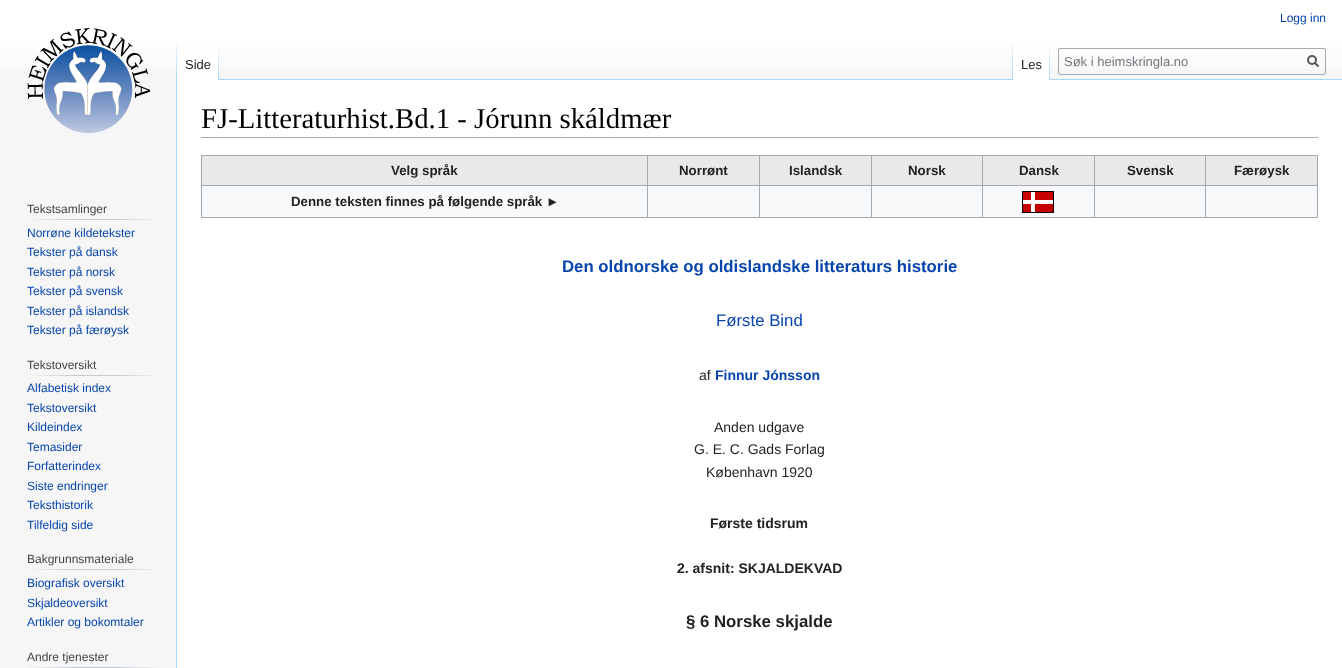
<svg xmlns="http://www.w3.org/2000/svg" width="1342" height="668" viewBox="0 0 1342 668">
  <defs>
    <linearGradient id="g1" gradientUnits="userSpaceOnUse" x1="671" y1="0" x2="671" y2="80"><stop offset="0.5" stop-color="#fff"/><stop offset="1" stop-color="#f6f6f6"/></linearGradient>
    <linearGradient id="g2" gradientUnits="userSpaceOnUse" x1="177" y1="40" x2="177" y2="80"><stop offset="0" stop-color="#a7d7f9" stop-opacity="0"/><stop offset="1" stop-color="#a7d7f9"/></linearGradient>
    <linearGradient id="g3" gradientUnits="userSpaceOnUse" x1="219" y1="40" x2="219" y2="80"><stop offset="0" stop-color="#fff"/><stop offset="1" stop-color="#a7d7f9"/></linearGradient>
    <linearGradient id="g4" gradientUnits="userSpaceOnUse" x1="1013" y1="40" x2="1013" y2="80"><stop offset="0" stop-color="#a7d7f9" stop-opacity="0"/><stop offset="1" stop-color="#a7d7f9"/></linearGradient>
    <linearGradient id="g5" gradientUnits="userSpaceOnUse" x1="1050" y1="40" x2="1050" y2="80"><stop offset="0" stop-color="#fff"/><stop offset="1" stop-color="#a7d7f9"/></linearGradient>
    <linearGradient id="g6" gradientUnits="userSpaceOnUse" x1="27" y1="220" x2="158" y2="220"><stop offset="0" stop-color="#f6f6f6"/><stop offset="0.35" stop-color="#c8ccd1"/><stop offset="0.7" stop-color="#c8ccd1"/><stop offset="1" stop-color="#f6f6f6"/></linearGradient>
    <linearGradient id="g7" gradientUnits="userSpaceOnUse" x1="27" y1="376" x2="158" y2="376"><stop offset="0" stop-color="#f6f6f6"/><stop offset="0.35" stop-color="#c8ccd1"/><stop offset="0.7" stop-color="#c8ccd1"/><stop offset="1" stop-color="#f6f6f6"/></linearGradient>
    <linearGradient id="g8" gradientUnits="userSpaceOnUse" x1="27" y1="570" x2="158" y2="570"><stop offset="0" stop-color="#f6f6f6"/><stop offset="0.35" stop-color="#c8ccd1"/><stop offset="0.7" stop-color="#c8ccd1"/><stop offset="1" stop-color="#f6f6f6"/></linearGradient>
    <linearGradient id="g9" gradientUnits="userSpaceOnUse" x1="27" y1="668" x2="158" y2="668"><stop offset="0" stop-color="#f6f6f6"/><stop offset="0.35" stop-color="#c8ccd1"/><stop offset="0.7" stop-color="#c8ccd1"/><stop offset="1" stop-color="#f6f6f6"/></linearGradient>
  </defs>
  <rect width="100%" height="100%" fill="#f6f6f6"/>
  <path d="M0 0h1342v69H0z" fill="url(#g1)"/>
  <path d="M176 79h1v589H176z" fill="#a7d7f9"/>
  <path d="M176 40h1v40H176z" fill="url(#g2)"/>
  <path d="M177 51h41v29H177z" fill="#fff"/>
  <path d="M218 40h1v40H218z" fill="url(#g3)"/>
  <path d="M219 79h1123v1H219z" fill="#a7d7f9"/>
  <path d="M1012 40h1v40H1012z" fill="url(#g4)"/>
  <path d="M1013 51h36v29H1013z" fill="#fff"/>
  <path d="M1049 40h1v40H1049z" fill="url(#g5)"/>
  <rect x="1058.5" y="48.5" width="267" height="26" rx="1.5" fill="none" stroke="#a2a9b1"/>
  <path d="M1318.5 66.5L1314.5 62.5" fill="none" stroke="#54595d" stroke-width="2"/>
  <circle cx="1312" cy="60" r="4" fill="none" stroke="#54595d" stroke-width="2"/>
  <image x="27" y="28" width="123" height="105" href="img/1.png"/>
  <path d="M27 219h131v1H27z" fill="url(#g6)"/>
  <path d="M27 375h131v1H27z" fill="url(#g7)"/>
  <path d="M27 569h131v1H27z" fill="url(#g8)"/>
  <path d="M27 667h131v1H27z" fill="url(#g9)"/>
  <path d="M177 80h1165v588H177z" fill="#fff"/>
  <path d="M201 137h1117v1H201z" fill="#a2a9b1"/>
  <path d="M202 186h1115v31H202z" fill="#f8f9fa"/>
  <path d="M201 155h1117v1H201z" fill="#a2a9b1"/>
  <path d="M1317 155h1v63H1317z" fill="#a2a9b1"/>
  <path d="M201 217h1117v1H201z" fill="#a2a9b1"/>
  <path d="M201 155h1v63H201z" fill="#a2a9b1"/>
  <path d="M202 156h1115v29H202z" fill="#e9e9e9"/>
  <path d="M1205 185h113v1H1205z" fill="#a2a9b1"/>
  <path d="M1205 185h1v33H1205z" fill="#a2a9b1"/>
  <path d="M1094 185h112v1H1094z" fill="#a2a9b1"/>
  <path d="M1094 185h1v33H1094z" fill="#a2a9b1"/>
  <path d="M982 185h113v1H982z" fill="#a2a9b1"/>
  <path d="M982 185h1v33H982z" fill="#a2a9b1"/>
  <path d="M871 185h112v1H871z" fill="#a2a9b1"/>
  <path d="M871 185h1v33H871z" fill="#a2a9b1"/>
  <path d="M759 185h113v1H759z" fill="#a2a9b1"/>
  <path d="M759 185h1v33H759z" fill="#a2a9b1"/>
  <path d="M647 185h113v1H647z" fill="#a2a9b1"/>
  <path d="M647 185h1v33H647z" fill="#a2a9b1"/>
  <path d="M201 185h447v1H201z" fill="#a2a9b1"/>
  <path d="M647 155h1v31H647z" fill="#a2a9b1"/>
  <path d="M759 155h1v31H759z" fill="#a2a9b1"/>
  <path d="M871 155h1v31H871z" fill="#a2a9b1"/>
  <path d="M982 155h1v31H982z" fill="#a2a9b1"/>
  <path d="M1094 155h1v31H1094z" fill="#a2a9b1"/>
  <path d="M1205 155h1v31H1205z" fill="#a2a9b1"/>
  <image x="1022" y="191" width="32" height="22" href="img/2.png"/>
  <text x="1280" y="22" font-family="Liberation Sans" font-size="12" fill="#0645ad">Logg inn</text>
  <g font-family="Liberation Sans" font-size="13" fill="#222">
    <text x="185" y="69">Side</text>
    <text x="1021" y="69">Les</text>
  </g>
  <text x="1064" y="66" font-family="Liberation Sans" font-size="13" fill="#72777d">Søk i heimskringla.no</text>
  <text x="27" y="213" font-family="Liberation Sans" font-size="12" fill="#444">Tekstsamlinger</text>
  <g font-family="Liberation Sans" font-size="12" fill="#0645ad">
    <text x="27" y="237">Norrøne kildetekster</text>
    <text x="27" y="256">Tekster på dansk</text>
    <text x="27" y="276">Tekster på norsk</text>
    <text x="27" y="295">Tekster på svensk</text>
    <text x="27" y="315">Tekster på islandsk</text>
    <text x="27" y="334">Tekster på færøysk</text>
  </g>
  <text x="27" y="369" font-family="Liberation Sans" font-size="12" fill="#444">Tekstoversikt</text>
  <g font-family="Liberation Sans" font-size="12" fill="#0645ad">
    <text x="27" y="392">Alfabetisk index</text>
    <text x="27" y="412">Tekstoversikt</text>
    <text x="27" y="431">Kildeindex</text>
    <text x="27" y="451">Temasider</text>
    <text x="27" y="470">Forfatterindex</text>
    <text x="27" y="490">Siste endringer</text>
    <text x="27" y="509">Teksthistorik</text>
    <text x="27" y="529">Tilfeldig side</text>
  </g>
  <text x="27" y="563" font-family="Liberation Sans" font-size="12" fill="#444">Bakgrunnsmateriale</text>
  <g font-family="Liberation Sans" font-size="12" fill="#0645ad">
    <text x="27" y="587">Biografisk oversikt</text>
    <text x="27" y="607">Skjaldeoversikt</text>
    <text x="27" y="626">Artikler og bokomtaler</text>
  </g>
  <text x="27" y="661" font-family="Liberation Sans" font-size="12" fill="#444">Andre tjenester</text>
  <text x="201" y="128" font-family="Liberation Serif" font-size="28.75" fill="#000">FJ-Litteraturhist.Bd.1 - Jórunn skáldmær</text>
  <g font-family="Liberation Sans" font-size="13.3" font-weight="bold" fill="#222">
    <text x="391" y="175">Velg språk</text>
    <text x="679" y="175">Norrønt</text>
    <text x="789" y="175">Islandsk</text>
    <text x="908" y="175">Norsk</text>
    <text x="1019" y="175">Dansk</text>
    <text x="1127" y="175">Svensk</text>
    <text x="1234" y="175">Færøysk</text>
    <text x="291" y="206">Denne teksten finnes på følgende språk ►</text>
  </g>
  <text x="562" y="272" font-family="Liberation Sans" font-size="16.8" font-weight="bold" fill="#0645ad">Den oldnorske og oldislandske litteraturs historie</text>
  <text x="716" y="326" font-family="Liberation Sans" font-size="16.8" fill="#0645ad">Første Bind</text>
  <text x="699" y="380" font-family="Liberation Sans" font-size="14" fill="#222">af</text>
  <text x="715" y="380" font-family="Liberation Sans" font-size="14" font-weight="bold" fill="#0645ad">Finnur Jónsson</text>
  <g font-family="Liberation Sans" font-size="14" fill="#222">
    <text x="714" y="432">Anden udgave</text>
    <text x="694" y="454">G. E. C. Gads Forlag</text>
    <text x="706" y="477">København 1920</text>
  </g>
  <g font-family="Liberation Sans" font-size="14" font-weight="bold" fill="#222">
    <text x="710" y="528">Første tidsrum</text>
    <text x="677" y="573">2. afsnit: SKJALDEKVAD</text>
  </g>
  <text x="686" y="627" font-family="Liberation Sans" font-size="16.8" font-weight="bold" fill="#222">§ 6 Norske skjalde</text>
</svg>
